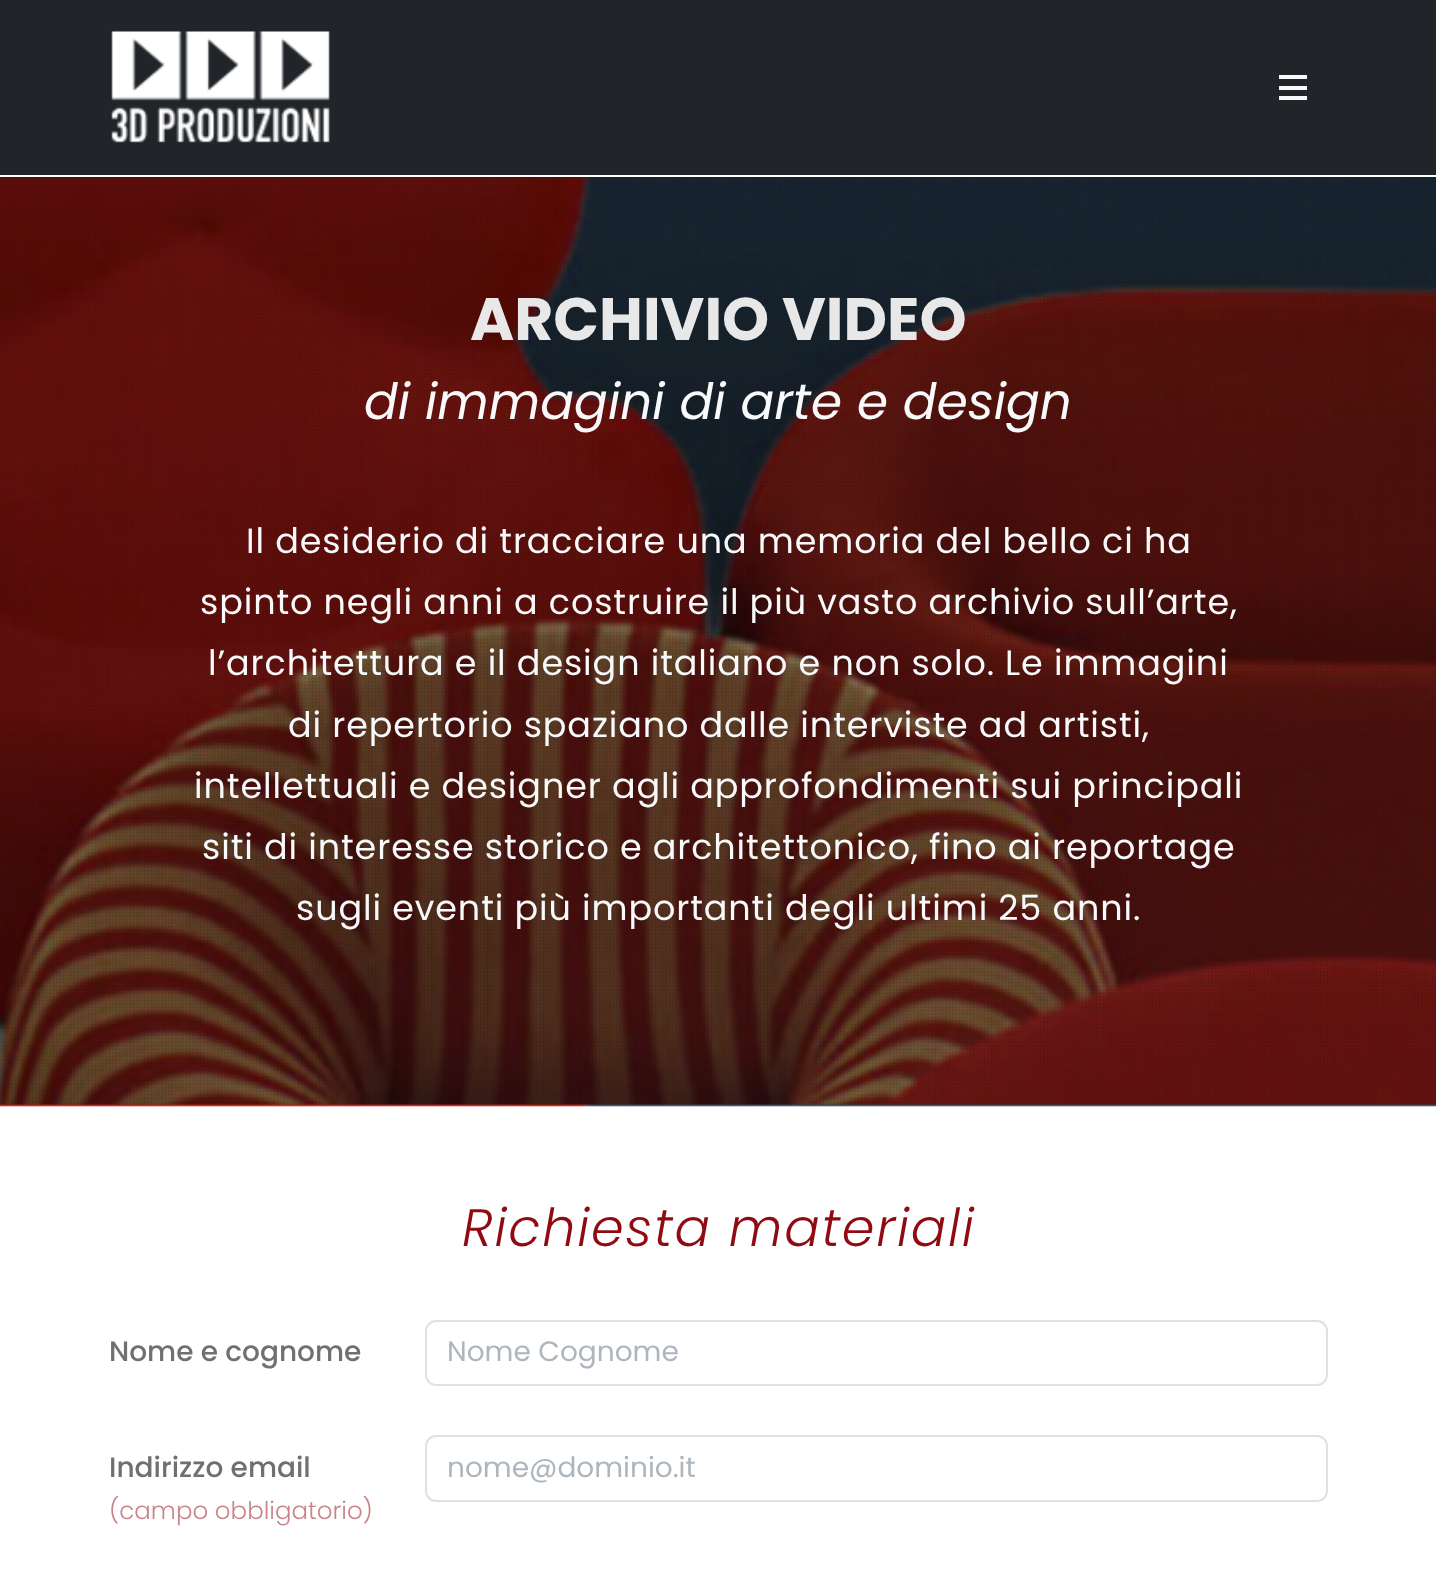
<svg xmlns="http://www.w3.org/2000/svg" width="1436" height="1573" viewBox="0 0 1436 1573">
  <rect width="100%" height="100%" fill="#fff"/>
  <path d="M0 0h1436v175H0z" fill="#212529"/>
  <image x="111" y="31" width="219" height="112" href="img/1.png"/>
  <path d="M1279 86h28v4H1279z" fill="#f8f9fa"/>
  <path d="M1279 75h28v4H1279z" fill="#f8f9fa"/>
  <path d="M1279 96h28v4H1279z" fill="#f8f9fa"/>
  <image x="0" y="177" width="1436" height="930" href="img/2.png"/>
  <path d="M0 1104h1436v2H0z" fill="#0000001a"/>
  <image x="0" y="177" width="1436" height="928" href="img/3.png"/>
  <rect x="426" y="1321" width="901" height="64" rx="10" fill="none" stroke="#dee2e6" stroke-width="2"/>
  <rect x="426" y="1436" width="901" height="65" rx="10" fill="none" stroke="#dee2e6" stroke-width="2"/>
  <text x="470" y="340" font-family="Poppins" font-size="60" font-weight="bold" fill="#e9e8e9">ARCHIVIO VIDEO</text>
  <text x="364" y="419" font-family="Poppins" font-size="50" font-style="italic" fill="#f8f9fa">di immagini di arte e design</text>
  <g font-family="Poppins" font-size="35" letter-spacing="0.88" fill="#f8f9fa">
    <text x="246" y="553">Il desiderio di tracciare una memoria del bello ci ha</text>
    <text x="200" y="614">spinto negli anni a costruire il più vasto archivio sull’arte,</text>
    <text x="208" y="675">l’architettura e il design italiano e non solo. Le immagini</text>
    <text x="288" y="737">di repertorio spaziano dalle interviste ad artisti,</text>
    <text x="194" y="798">intellettuali e designer agli approfondimenti sui principali</text>
    <text x="202" y="859">siti di interesse storico e architettonico, fino ai reportage</text>
    <text x="296" y="920">sugli eventi più importanti degli ultimi 25 anni.</text>
  </g>
  <text x="462" y="1246" font-family="Poppins" font-size="52.5" font-weight="300" font-style="italic" letter-spacing="1.75" fill="#900a12">Richiesta materiali</text>
  <text x="109" y="1361" font-family="Poppins" font-size="28" font-weight="500" fill="#707070">Nome e cognome</text>
  <text x="447" y="1361" font-family="Poppins" font-size="28" fill="#adb5bd">Nome Cognome</text>
  <text x="109" y="1477" font-family="Poppins" font-size="28" font-weight="500" fill="#707070">Indirizzo email</text>
  <text x="109" y="1519" font-family="Poppins" font-size="24.5" font-weight="300" fill="#c88588">(campo obbligatorio)</text>
  <text x="447" y="1477" font-family="Poppins" font-size="28" fill="#adb5bd">nome@dominio.it</text>
</svg>
